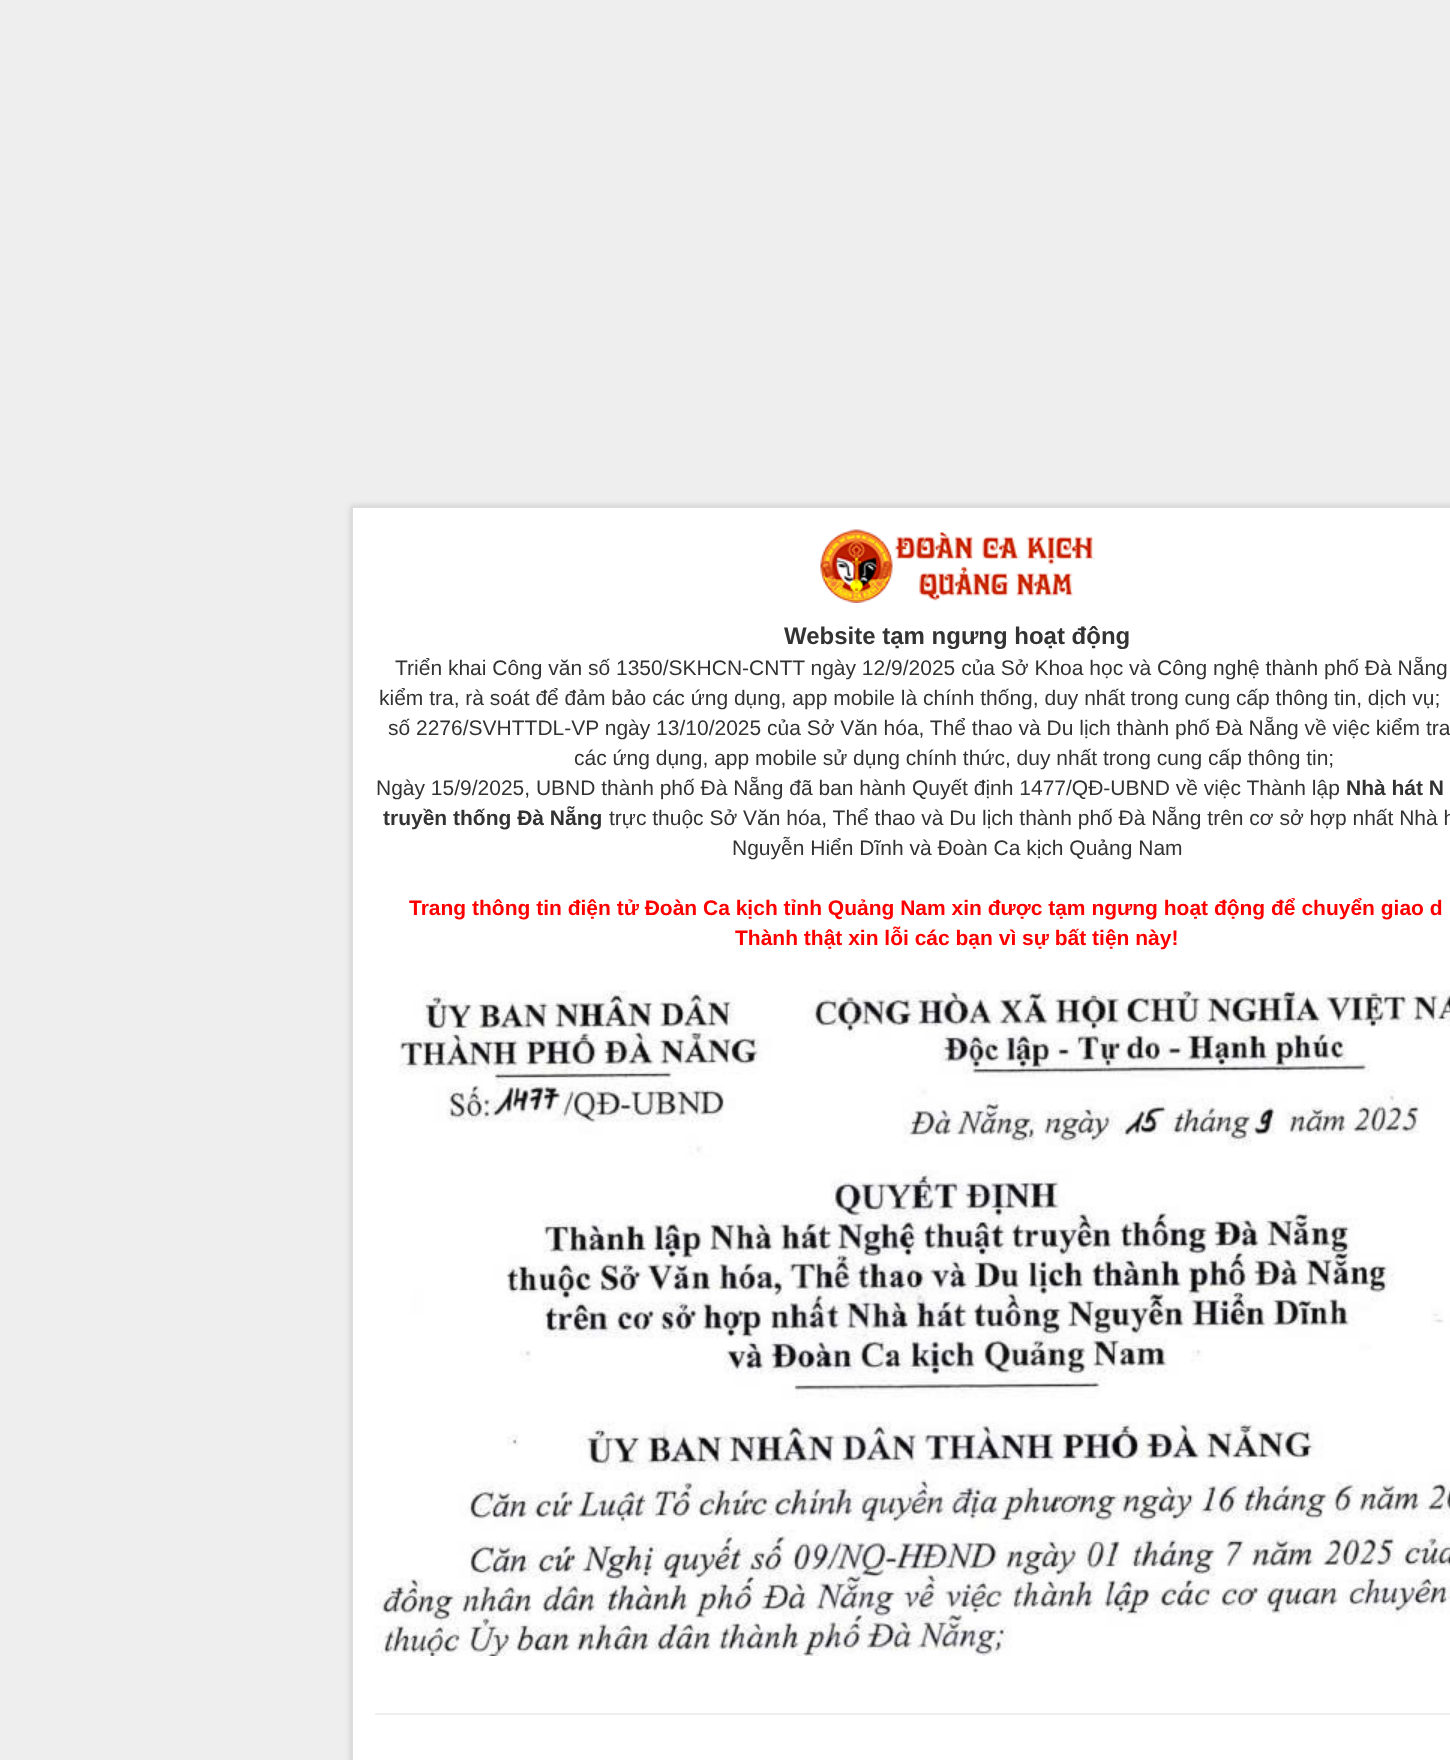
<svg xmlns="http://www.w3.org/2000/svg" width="1450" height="1760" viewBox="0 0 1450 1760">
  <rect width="100%" height="100%" fill="#eee"/>
  <path d="M351 506h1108v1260H351z" fill="#00000026" filter="blur(3px)"/>
  <path d="M352 507h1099v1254H352z" fill="#fff" stroke="#dcdcdc" stroke-width="2"/>
  <image x="820" y="529" width="275" height="74" href="img/1.png"/>
  <image x="375" y="990" width="1075" height="666" href="img/2.png"/>
  <path d="M375 1713h1075v2H375z" fill="#eee"/>
  <text x="784" y="644" font-family="Liberation Sans" font-size="24" font-weight="bold" fill="#333">Website tạm ngưng hoạt động</text>
  <g font-family="Liberation Sans" font-size="21" fill="#333">
    <text x="395" y="675">Triển khai Công văn số 1350/SKHCN-CNTT ngày 12/9/2025 của Sở Khoa học và Công nghệ thành phố Đà Nẵng</text>
    <text x="379" y="705">kiểm tra, rà soát để đảm bảo các ứng dụng, app mobile là chính thống, duy nhất trong cung cấp thông tin, dịch vụ;</text>
    <text x="388" y="735">số 2276/SVHTTDL-VP ngày 13/10/2025 của Sở Văn hóa, Thể thao và Du lịch thành phố Đà Nẵng về việc kiểm tra</text>
    <text x="574" y="765">các ứng dụng, app mobile sử dụng chính thức, duy nhất trong cung cấp thông tin;</text>
    <text x="376" y="795">Ngày 15/9/2025, UBND thành phố Đà Nẵng đã ban hành Quyết định 1477/QĐ-UBND về việc Thành lập</text>
  </g>
  <g font-family="Liberation Sans" font-size="21" font-weight="bold" fill="#333">
    <text x="1346" y="795">Nhà hát N</text>
    <text x="383" y="825">truyền thống Đà Nẵng</text>
  </g>
  <g font-family="Liberation Sans" font-size="21" fill="#333">
    <text x="609" y="825">trực thuộc Sở Văn hóa, Thể thao và Du lịch thành phố Đà Nẵng trên cơ sở hợp nhất Nhà h</text>
    <text x="732" y="855">Nguyễn Hiển Dĩnh và Đoàn Ca kịch Quảng Nam</text>
  </g>
  <g font-family="Liberation Sans" font-size="21" font-weight="bold" fill="#f00">
    <text x="409" y="915">Trang thông tin điện tử Đoàn Ca kịch tỉnh Quảng Nam xin được tạm ngưng hoạt động để chuyển giao d</text>
    <text x="735" y="945">Thành thật xin lỗi các bạn vì sự bất tiện này!</text>
  </g>
</svg>
